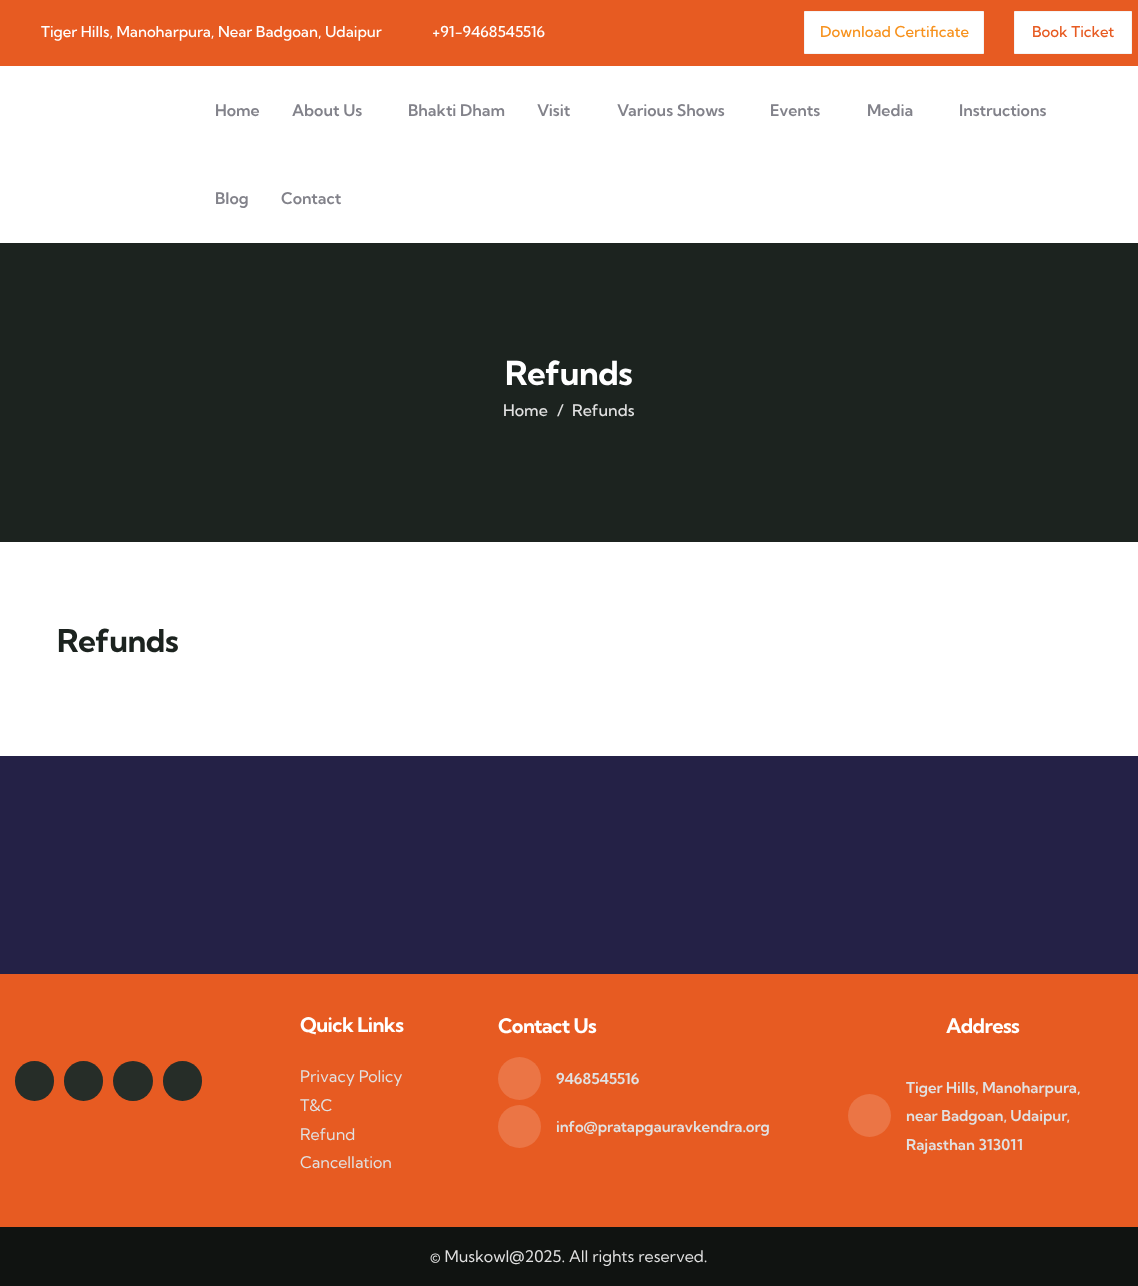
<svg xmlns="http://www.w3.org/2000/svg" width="1138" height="1286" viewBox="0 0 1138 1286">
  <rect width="100%" height="100%" fill="#fff"/>
  <path d="M0 0h1138v66H0z" fill="#e75b22"/>
  <path d="M804.5 11.5h179v42H804.5z" fill="#fff" stroke="#f5f4f4"/>
  <path d="M1014.5 11.5h117v42H1014.5z" fill="#fff" stroke="#f5f4f4"/>
  <path d="M0 243h1138v299H0z" fill="#1c231f"/>
  <path d="M0 756h1138v218H0z" fill="#242146"/>
  <path d="M0 974h1138v253H0z" fill="#e75b22"/>
  <rect x="15" y="1061" width="39" height="40" rx="19.5" fill="#262d28"/>
  <rect x="64" y="1061" width="39" height="40" rx="19.5" fill="#262d28"/>
  <circle cx="133" cy="1081" r="20" fill="#262d28"/>
  <rect x="163" y="1061" width="39" height="40" rx="19.5" fill="#262d28"/>
  <circle cx="519.5" cy="1078.5" r="21.5" fill="#eb7545"/>
  <circle cx="519.5" cy="1126.5" r="21.5" fill="#eb7545"/>
  <circle cx="869.5" cy="1115.5" r="21.5" fill="#eb7545"/>
  <path d="M0 1227h1138v59H0z" fill="#101311"/>
  <g font-family="Kumbh Sans" font-size="15" font-weight="500" fill="#fff">
    <text x="41" y="37">Tiger Hills, Manoharpura, Near Badgoan, Udaipur</text>
    <text x="432" y="37">+91-9468545516</text>
  </g>
  <text x="820" y="37" font-family="Kumbh Sans" font-size="15" font-weight="500" fill="#f7921e">Download Certificate</text>
  <text x="1032" y="37" font-family="Kumbh Sans" font-size="15" font-weight="500" fill="#e75b22">Book Ticket</text>
  <g font-family="Kumbh Sans" font-size="16" font-weight="600" fill="#82828a">
    <text x="215" y="116">Home</text>
    <text x="292" y="116">About Us</text>
    <text x="408" y="116">Bhakti Dham</text>
    <text x="537" y="116">Visit</text>
    <text x="617" y="116">Various Shows</text>
    <text x="770" y="116">Events</text>
    <text x="867" y="116">Media</text>
    <text x="959" y="116">Instructions</text>
    <text x="215" y="204">Blog</text>
    <text x="281" y="204">Contact</text>
  </g>
  <text x="505" y="385" font-family="Kumbh Sans" font-size="33" font-weight="bold" letter-spacing="-0.5" fill="#fff">Refunds</text>
  <g font-family="Kumbh Sans" font-size="16" font-weight="500" fill="#e1e1e1">
    <text x="503" y="416">Home</text>
    <text x="557" y="416">/</text>
    <text x="572" y="416">Refunds</text>
  </g>
  <text x="57" y="652" font-family="Kumbh Sans" font-size="31.5" font-weight="bold" letter-spacing="-0.5" fill="#1c231f">Refunds</text>
  <text x="300" y="1032" font-family="Kumbh Sans" font-size="20" font-weight="bold" letter-spacing="-0.6" fill="#fff">Quick Links</text>
  <g font-family="Kumbh Sans" font-size="16" fill="#e1e1e1">
    <text x="300" y="1082">Privacy Policy</text>
    <text x="300" y="1111">T&amp;C</text>
    <text x="300" y="1140">Refund</text>
    <text x="300" y="1168">Cancellation</text>
  </g>
  <text x="498" y="1033" font-family="Kumbh Sans" font-size="20" font-weight="bold" letter-spacing="-0.6" fill="#fff">Contact Us</text>
  <g font-family="Kumbh Sans" font-size="15" font-weight="600" fill="#e1e1e1">
    <text x="556" y="1084">9468545516</text>
    <text x="556" y="1132">info@pratapgauravkendra.org</text>
  </g>
  <text x="946" y="1033" font-family="Kumbh Sans" font-size="20" font-weight="bold" letter-spacing="-0.6" fill="#fff">Address</text>
  <g font-family="Kumbh Sans" font-size="15" font-weight="600" fill="#e1e1e1">
    <text x="906" y="1093">Tiger Hills, Manoharpura,</text>
    <text x="906" y="1121">near Badgoan, Udaipur,</text>
    <text x="906" y="1150">Rajasthan 313011</text>
  </g>
  <text x="430" y="1262" font-family="Kumbh Sans" font-size="16" fill="#e1e1e1">© Muskowl@2025. All rights reserved.</text>
</svg>
